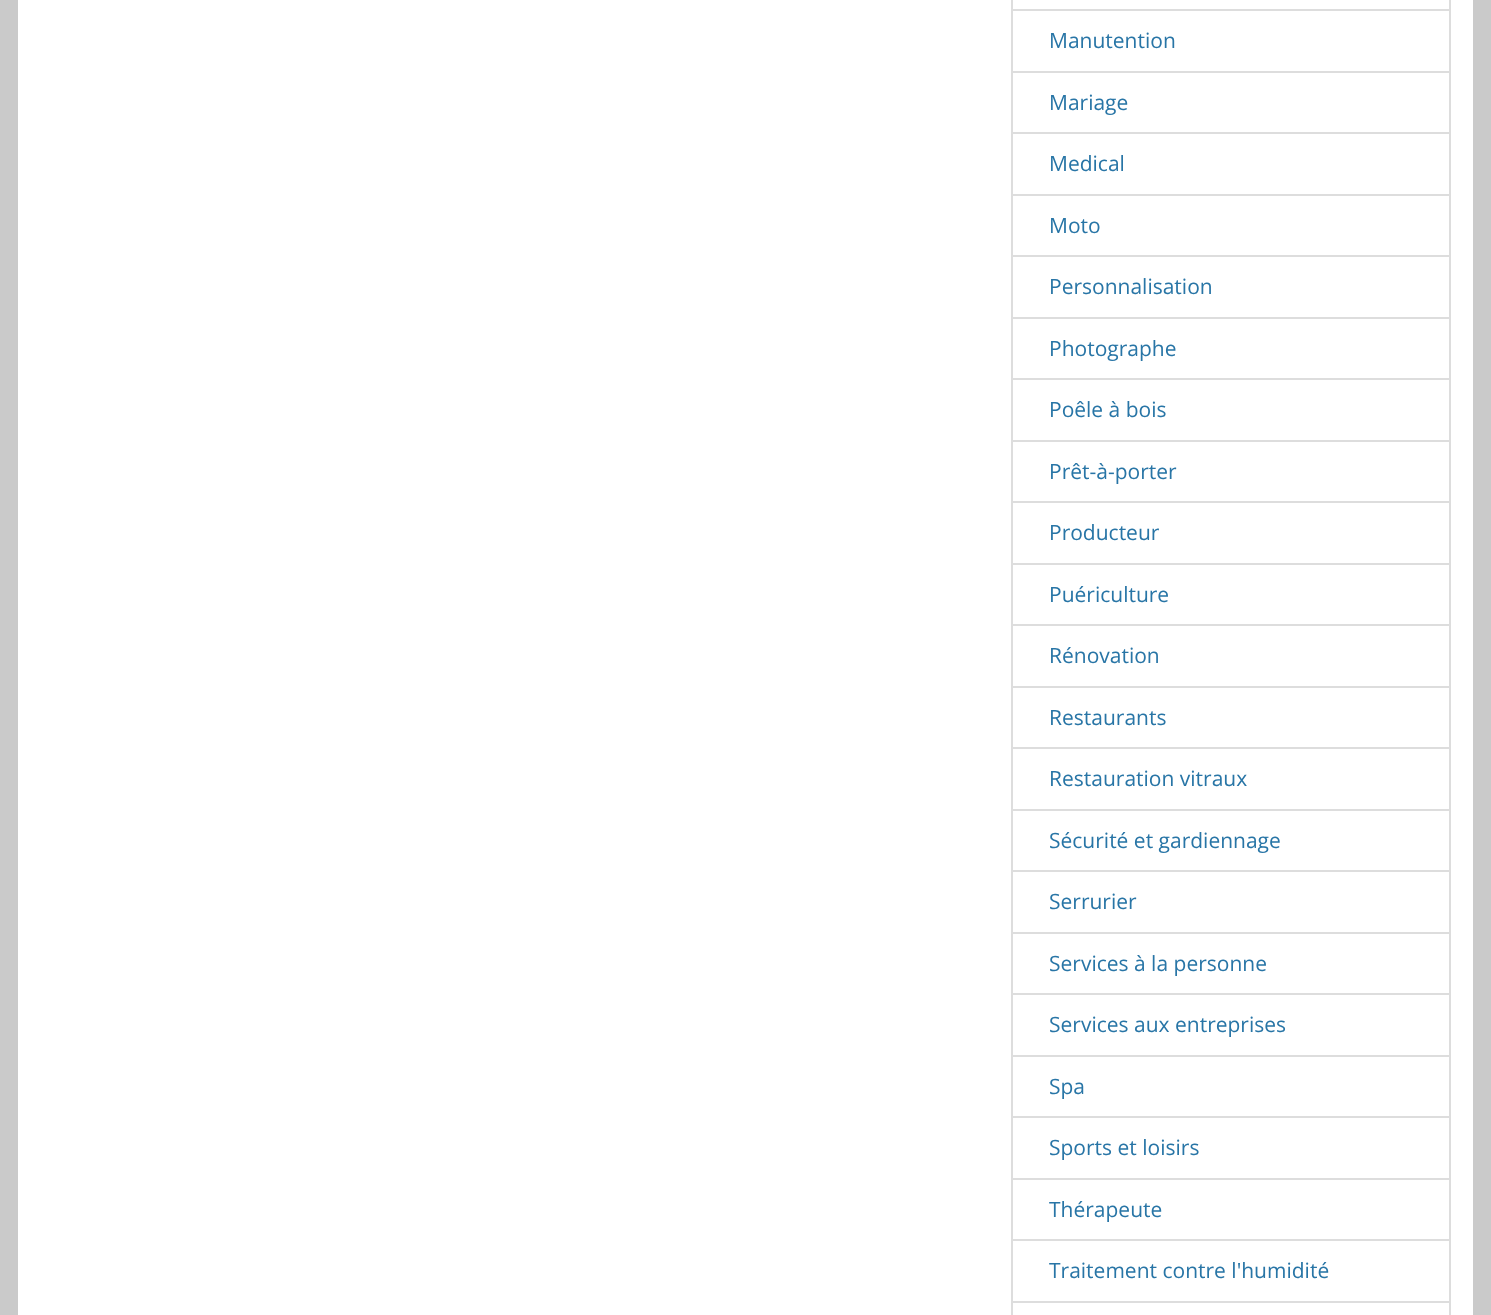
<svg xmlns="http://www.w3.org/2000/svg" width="1491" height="1315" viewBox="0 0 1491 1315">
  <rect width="100%" height="100%" fill="#cacaca"/>
  <path d="M18 0h1455v1315H18z" fill="#fff"/>
  <path d="M1012 -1h438v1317H1012z" fill="none" stroke="#ddd" stroke-width="2"/>
  <path d="M1013 9h436v2H1013z" fill="#ddd"/>
  <path d="M1013 71h436v2H1013z" fill="#ddd"/>
  <path d="M1013 132h436v2H1013z" fill="#ddd"/>
  <path d="M1013 194h436v2H1013z" fill="#ddd"/>
  <path d="M1013 255h436v2H1013z" fill="#ddd"/>
  <path d="M1013 317h436v2H1013z" fill="#ddd"/>
  <path d="M1013 378h436v2H1013z" fill="#ddd"/>
  <path d="M1013 440h436v2H1013z" fill="#ddd"/>
  <path d="M1013 501h436v2H1013z" fill="#ddd"/>
  <path d="M1013 563h436v2H1013z" fill="#ddd"/>
  <path d="M1013 624h436v2H1013z" fill="#ddd"/>
  <path d="M1013 686h436v2H1013z" fill="#ddd"/>
  <path d="M1013 747h436v2H1013z" fill="#ddd"/>
  <path d="M1013 809h436v2H1013z" fill="#ddd"/>
  <path d="M1013 870h436v2H1013z" fill="#ddd"/>
  <path d="M1013 932h436v2H1013z" fill="#ddd"/>
  <path d="M1013 993h436v2H1013z" fill="#ddd"/>
  <path d="M1013 1055h436v2H1013z" fill="#ddd"/>
  <path d="M1013 1116h436v2H1013z" fill="#ddd"/>
  <path d="M1013 1178h436v2H1013z" fill="#ddd"/>
  <path d="M1013 1239h436v2H1013z" fill="#ddd"/>
  <path d="M1013 1301h436v2H1013z" fill="#ddd"/>
  <g font-family="Open Sans" font-size="21" fill="#2875a6">
    <text x="1049" y="48">Manutention</text>
    <text x="1049" y="110">Mariage</text>
    <text x="1049" y="171">Medical</text>
    <text x="1049" y="233">Moto</text>
    <text x="1049" y="294">Personnalisation</text>
    <text x="1049" y="356">Photographe</text>
    <text x="1049" y="417">Poêle à bois</text>
    <text x="1049" y="479">Prêt-à-porter</text>
    <text x="1049" y="540">Producteur</text>
    <text x="1049" y="602">Puériculture</text>
    <text x="1049" y="663">Rénovation</text>
    <text x="1049" y="725">Restaurants</text>
    <text x="1049" y="786">Restauration vitraux</text>
    <text x="1049" y="848">Sécurité et gardiennage</text>
    <text x="1049" y="909">Serrurier</text>
    <text x="1049" y="971">Services à la personne</text>
    <text x="1049" y="1032">Services aux entreprises</text>
    <text x="1049" y="1094">Spa</text>
    <text x="1049" y="1155">Sports et loisirs</text>
    <text x="1049" y="1217">Thérapeute</text>
    <text x="1049" y="1278">Traitement contre l'humidité</text>
  </g>
</svg>
